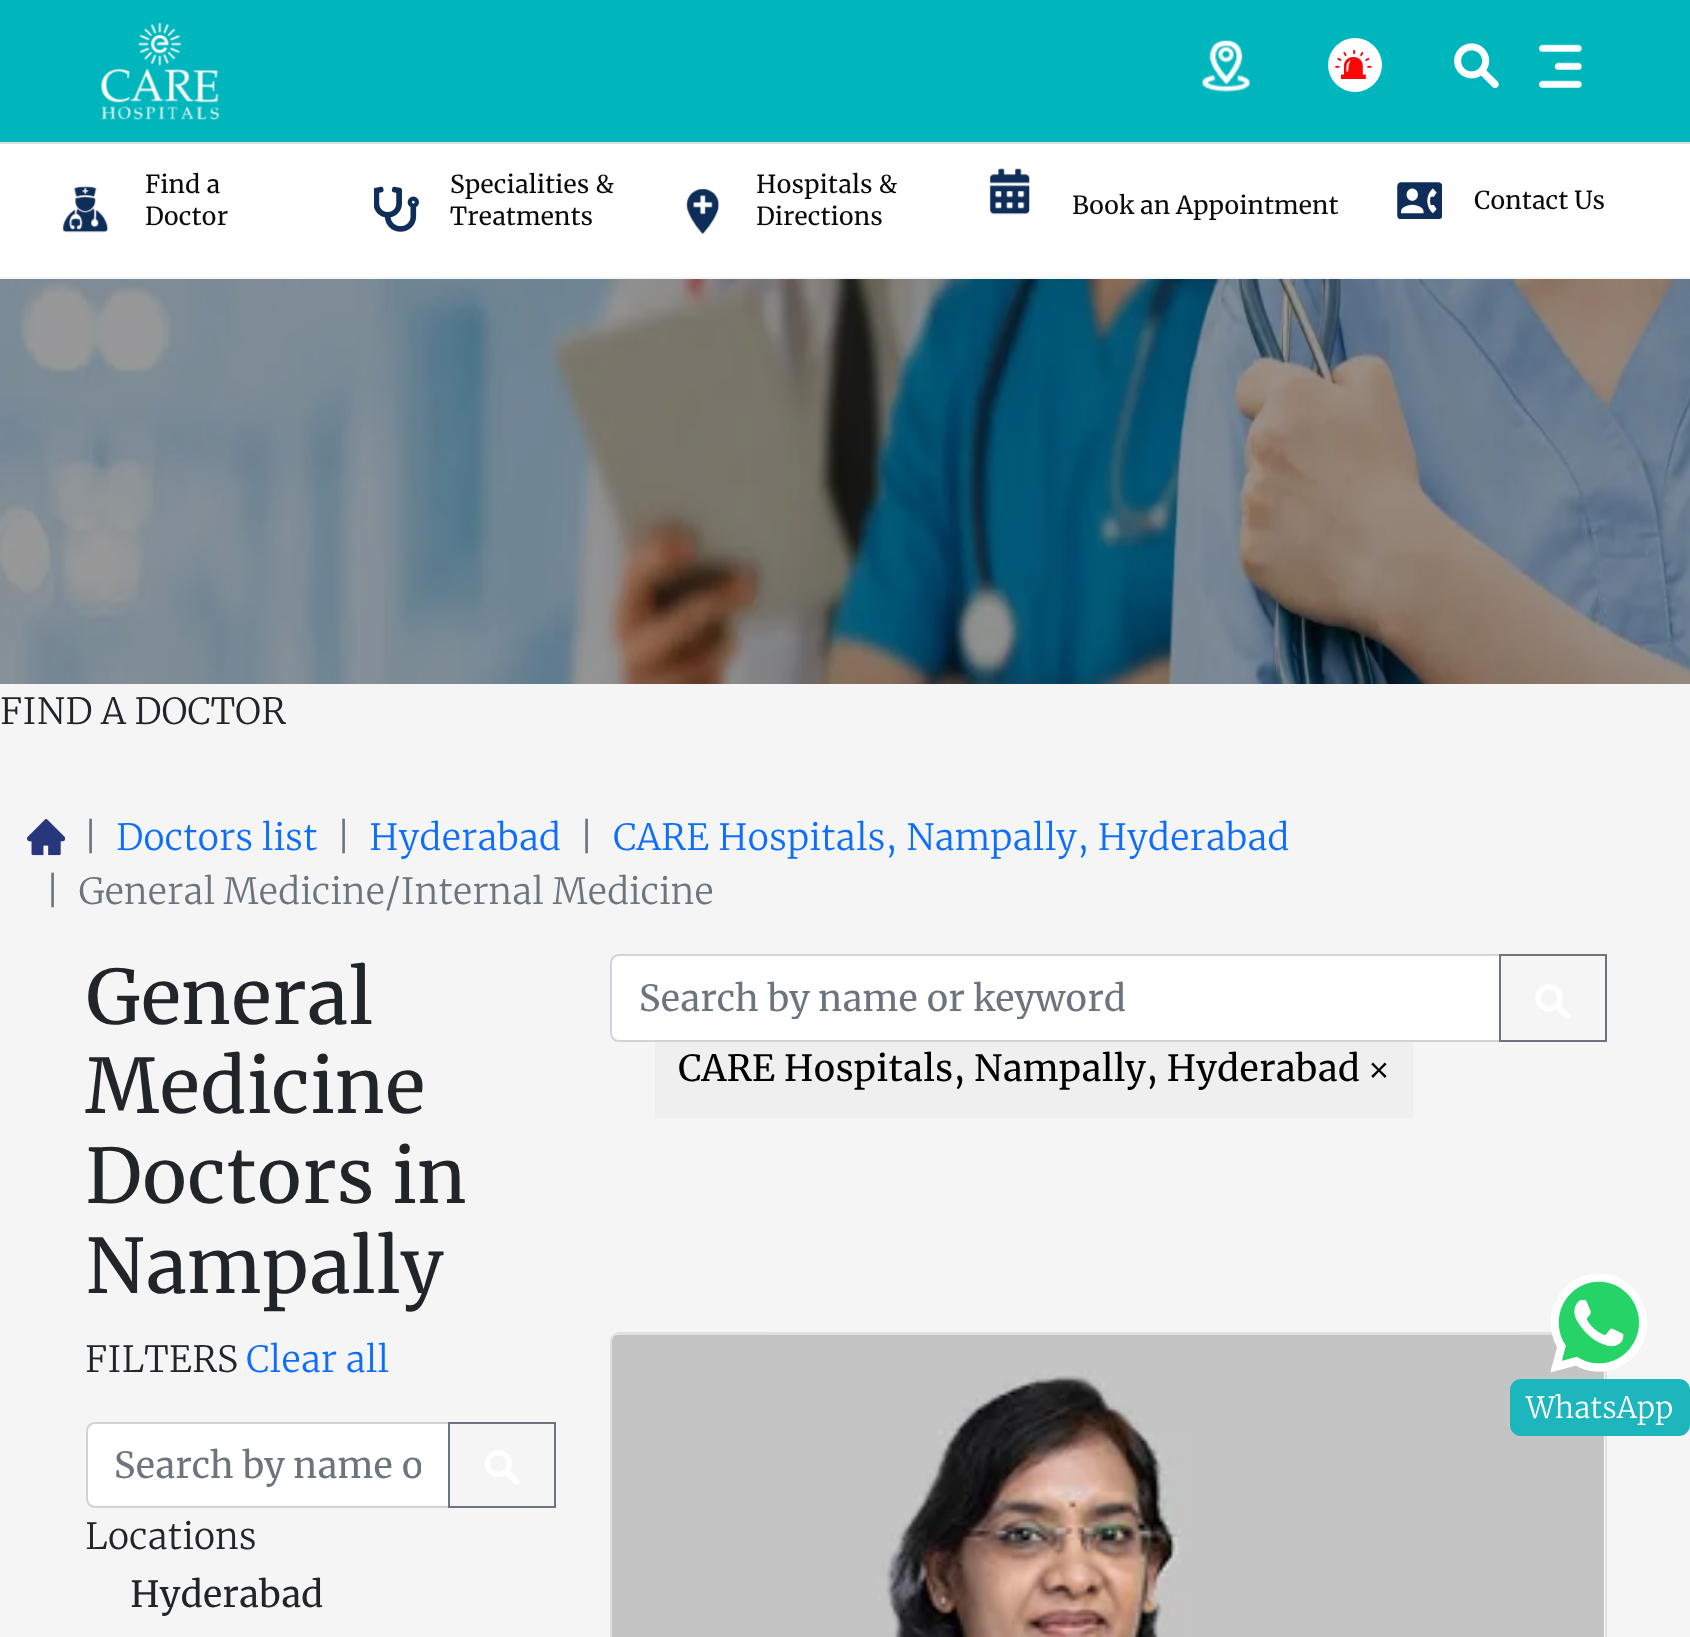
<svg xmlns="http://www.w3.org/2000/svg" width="1690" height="1637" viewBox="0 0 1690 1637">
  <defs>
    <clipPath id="clip1"><path d="M639 974h833v45H639z"/></clipPath>
    <clipPath id="clip2"><path d="M115 1442h306v45H115z"/></clipPath>
  </defs>
  <rect width="100%" height="100%" fill="#f5f5f5"/>
  <path d="M0 142h1690v2H0z" fill="#e0e0e0"/>
  <path d="M0 0h1690v142H0z" fill="#00b6bd"/>
  <image x="100" y="22" width="120" height="98" href="img/1.png"/>
  <image x="1202" y="40" width="49" height="53" href="img/2.png"/>
  <circle cx="1355" cy="65" r="27" fill="#fff"/>
  <image x="1335" y="49" width="37" height="30" href="img/3.png"/>
  <image x="1454" y="43" width="45" height="45" href="img/4.png"/>
  <image x="1539" y="44" width="43" height="44" href="img/5.png"/>
  <path d="M0 144h1690v133H0z" fill="#fff"/>
  <image x="62" y="186" width="46" height="47" href="img/6.png"/>
  <image x="374" y="186" width="45" height="46" href="img/7.png"/>
  <image x="686" y="188" width="34" height="46" href="img/8.png"/>
  <image x="989" y="168" width="41" height="47" href="img/9.png"/>
  <image x="1397" y="182" width="45" height="37" href="img/10.png"/>
  <image x="0" y="279" width="1690" height="405" href="img/11.png"/>
  <image x="27" y="819" width="38" height="37" href="img/12.png"/>
  <path d="M619 955H1500V1041H619C614.5 1041 611 1037.5 611 1033V963C611 958.5 614.5 955 619 955Z" fill="#fff" stroke="#ced4da" stroke-width="2"/>
  <path d="M1500 955h106v86H1500z" fill="none" stroke="#6c757d" stroke-width="2"/>
  <image x="1535" y="984" width="35" height="35" href="img/13.png"/>
  <path d="M655 1042h758v76H655z" fill="#efefef"/>
  <path d="M95 1424H448V1505H95C91 1505 88 1502 88 1498V1431C88 1427 91 1424 95 1424Z" fill="#fff"/>
  <path d="M95 1423H449V1507H95C90.5 1507 87 1503.5 87 1499V1431C87 1426.5 90.5 1423 95 1423Z" fill="none" stroke="#ced4da" stroke-width="2"/>
  <path d="M449 1423h106v84H449z" fill="none" stroke="#6c757d" stroke-width="2"/>
  <image x="484" y="1450" width="36" height="35" href="img/14.png"/>
  <rect x="610" y="1332" width="997" height="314" rx="9" fill="#fff"/>
  <rect x="611" y="1333" width="995" height="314" rx="8" fill="none" stroke="#0000001f" stroke-width="2"/>
  <image x="612" y="1334" width="992" height="303" href="img/15.png"/>
  <image x="1550" y="1274" width="97" height="99" href="img/16.png"/>
  <rect x="1510" y="1379" width="180" height="57" rx="11" fill="#1db6bc"/>
  <g font-family="Merriweather" font-size="24.75" fill="#0a0a0a">
    <text x="145" y="193">Find a</text>
    <text x="145" y="225">Doctor</text>
    <text x="450" y="193">Specialities &amp;</text>
    <text x="450" y="225">Treatments</text>
    <text x="756" y="193">Hospitals &amp;</text>
    <text x="756" y="225">Directions</text>
    <text x="1072" y="214">Book an Appointment</text>
    <text x="1474" y="209">Contact Us</text>
  </g>
  <text x="0" y="724" font-family="Merriweather" font-size="36" font-weight="300" fill="#212529">FIND A DOCTOR</text>
  <text x="83" y="850" font-family="Merriweather" font-size="36" font-weight="300" fill="#6c757d">|</text>
  <text x="116" y="850" font-family="Merriweather" font-size="36" font-weight="300" fill="#0d6efd">Doctors list</text>
  <text x="336" y="850" font-family="Merriweather" font-size="36" font-weight="300" fill="#6c757d">|</text>
  <text x="369" y="850" font-family="Merriweather" font-size="36" font-weight="300" fill="#0d6efd">Hyderabad</text>
  <text x="579" y="850" font-family="Merriweather" font-size="36" font-weight="300" fill="#6c757d">|</text>
  <text x="613" y="850" font-family="Merriweather" font-size="36" font-weight="300" fill="#0d6efd">CARE Hospitals, Nampally, Hyderabad</text>
  <g font-family="Merriweather" font-size="36" font-weight="300" fill="#6c757d">
    <text x="45" y="904">|</text>
    <text x="78" y="904">General Medicine/Internal Medicine</text>
  </g>
  <g font-family="Merriweather" font-size="75" fill="#212529">
    <text x="85" y="1024">General</text>
    <text x="85" y="1113">Medicine</text>
    <text x="85" y="1203">Doctors in</text>
    <text x="85" y="1293">Nampally</text>
  </g>
  <g clip-path="url(#clip1)">
    <text x="639" y="1011" font-family="Merriweather" font-size="36" fill="#6c757d">Search by name or keyword</text>
  </g>
  <text x="678" y="1081" font-family="Merriweather" font-size="36" fill="#000">CARE Hospitals, Nampally, Hyderabad</text>
  <text x="1368" y="1081" font-family="Merriweather" font-size="36" font-weight="300" fill="#000">×</text>
  <text x="85" y="1372" font-family="Merriweather" font-size="36" font-weight="300" fill="#212529">FILTERS</text>
  <text x="246" y="1372" font-family="Merriweather" font-size="36" font-weight="300" fill="#0d6efd">Clear all</text>
  <g clip-path="url(#clip2)">
    <text x="114" y="1478" font-family="Merriweather" font-size="36" fill="#6c757d">Search by name o</text>
  </g>
  <text x="85" y="1549" font-family="Merriweather" font-size="36" font-weight="300" fill="#212529">Locations</text>
  <text x="130" y="1607" font-family="Merriweather" font-size="36" fill="#212529">Hyderabad</text>
  <text x="1526" y="1418" font-family="Merriweather" font-size="29.25" font-weight="300" fill="#fff">WhatsApp</text>
</svg>
